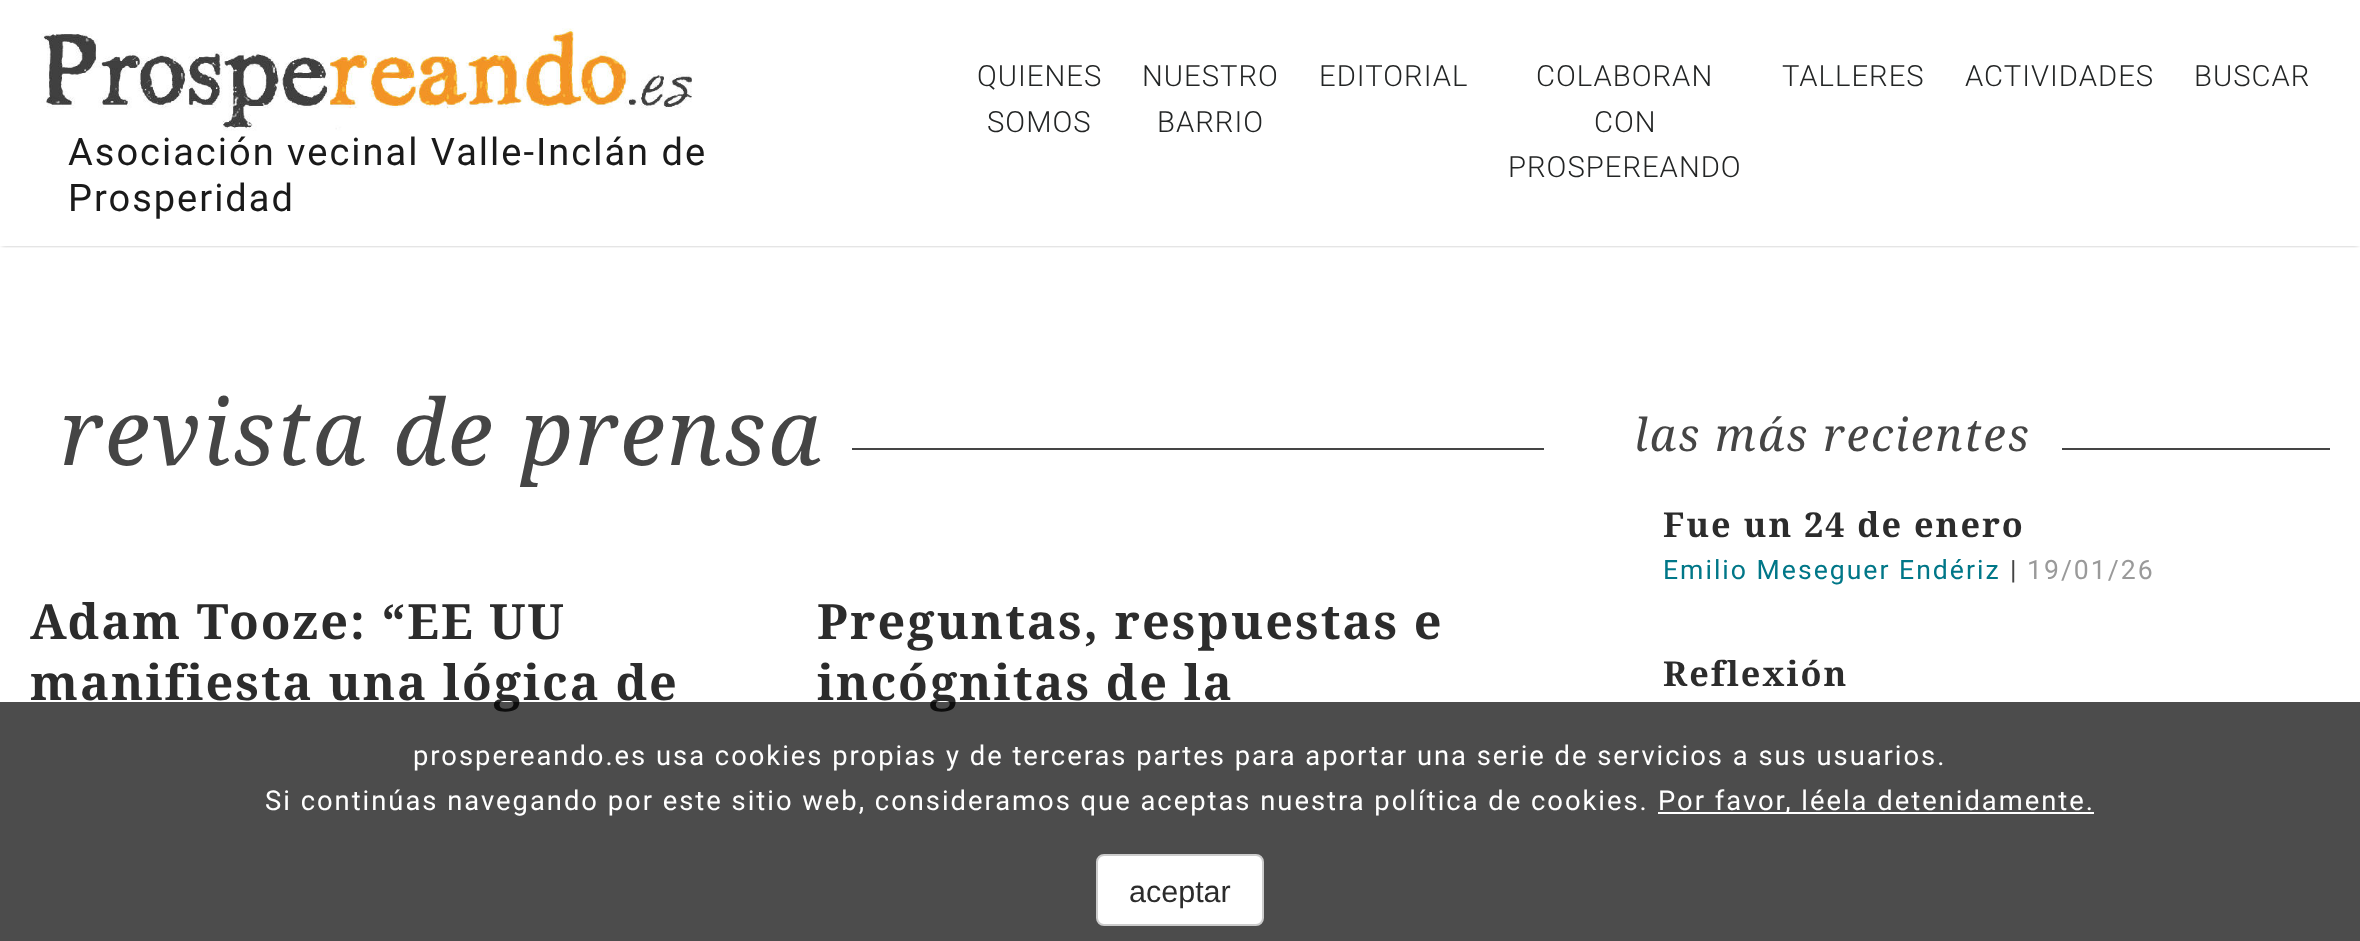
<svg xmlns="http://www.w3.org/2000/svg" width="2360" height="941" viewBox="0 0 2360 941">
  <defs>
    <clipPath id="clip1"><path d="M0 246h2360v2H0z"/></clipPath>
  </defs>
  <rect width="100%" height="100%" fill="#fff"/>
  <g clip-path="url(#clip1)">
    <path d="M2 2h2356v242H2z" fill="#333" filter="blur(2px)"/>
  </g>
  <image x="41" y="28" width="651" height="103" href="img/1.png"/>
  <path d="M852 448h692v2H852z" fill="#454545"/>
  <path d="M2062 448h268v2H2062z" fill="#454545"/>
  <g font-family="Roboto" font-size="38" letter-spacing="2" fill="#1a1a1a">
    <text x="68" y="165">Asociación vecinal Valle-Inclán de</text>
    <text x="68" y="211">Prosperidad</text>
  </g>
  <g font-family="Roboto" font-size="29.25" font-weight="300" letter-spacing="1" fill="#232525">
    <text x="977" y="86">QUIENES</text>
    <text x="987" y="132">SOMOS</text>
    <text x="1142" y="86">NUESTRO</text>
    <text x="1157" y="132">BARRIO</text>
    <text x="1319" y="86">EDITORIAL</text>
    <text x="1536" y="86">COLABORAN</text>
    <text x="1594" y="132">CON</text>
    <text x="1508" y="177">PROSPEREANDO</text>
    <text x="1782" y="86">TALLERES</text>
    <text x="1965" y="86">ACTIVIDADES</text>
    <text x="2194" y="86">BUSCAR</text>
  </g>
  <text x="60" y="465" font-family="Droid Serif" font-size="91.25" font-style="italic" letter-spacing="2" fill="#454545">revista de prensa</text>
  <g font-family="Droid Serif" font-size="48.6" font-weight="bold" letter-spacing="2" fill="#2c2c2c">
    <text x="30" y="639">Adam Tooze: “EE UU</text>
    <text x="30" y="700">manifiesta una lógica de</text>
    <text x="817" y="639">Preguntas, respuestas e</text>
    <text x="817" y="700">incógnitas de la</text>
  </g>
  <text x="1634" y="451" font-family="Droid Serif" font-size="45.5" font-style="italic" letter-spacing="2" fill="#454545">las más recientes</text>
  <text x="1663" y="537" font-family="Droid Serif" font-size="34.25" font-weight="bold" letter-spacing="2" fill="#2c2c2c">Fue un 24 de enero</text>
  <text x="1663" y="579" font-family="Roboto" font-size="26.6" letter-spacing="2" fill="#078">Emilio Meseguer Endériz</text>
  <text x="2010" y="579" font-family="Roboto" font-size="26.6" letter-spacing="2" fill="#454545">|</text>
  <text x="2027" y="579" font-family="Roboto" font-size="26.6" letter-spacing="2" fill="#9a9a9a">19/01/26</text>
  <text x="1663" y="686" font-family="Droid Serif" font-size="34.25" font-weight="bold" letter-spacing="2" fill="#2c2c2c">Reflexión</text>
  <path d="M0 702h2360v239H0z" fill="#000000b3"/>
  <g font-family="Roboto" font-size="27.35" letter-spacing="2" fill="#fff">
    <text x="413" y="765">prospereando.es usa cookies propias y de terceras partes para aportar una serie de servicios a sus usuarios.</text>
    <text x="265" y="810">Si continúas navegando por este sitio web, consideramos que aceptas nuestra política de cookies.</text>
  </g>
  <path d="M1658 812h436v2H1658z" fill="#fff"/>
  <text x="1658" y="810" font-family="Roboto" font-size="27.35" letter-spacing="2" fill="#fff">Por favor, léela detenidamente.</text>
  <rect x="1097" y="855" width="166" height="70" rx="7" fill="#fff" stroke="#ccc" stroke-width="2"/>
  <text x="1129" y="902" font-family="Liberation Sans" font-size="30.5" fill="#2c2c2c">aceptar</text>
</svg>
